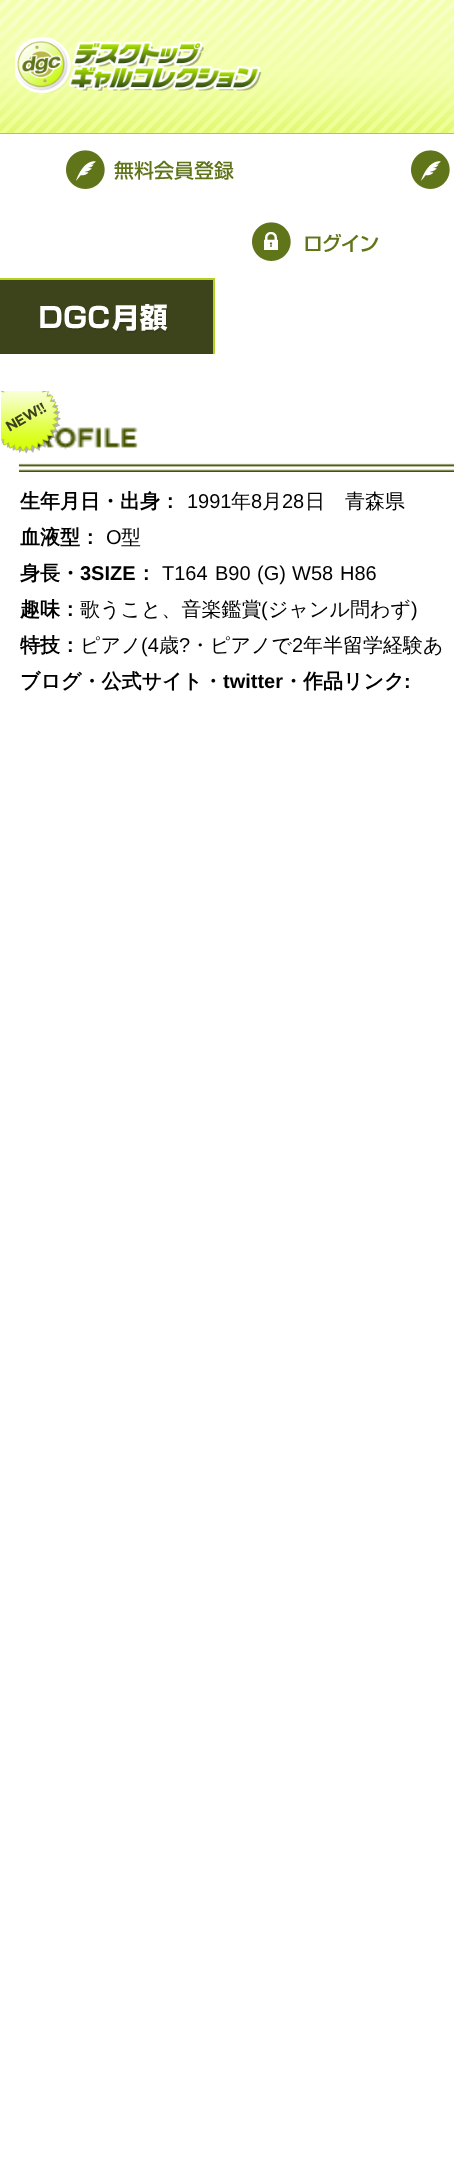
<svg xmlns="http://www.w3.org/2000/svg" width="454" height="2183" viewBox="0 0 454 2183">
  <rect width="100%" height="100%" fill="#fff"/>
  <path d="M0 133h454v1H0z" fill="#b4d121"/>
  <image x="0" y="0" width="454" height="133" href="img/1.png"/>
  <image x="15" y="36" width="247" height="58" href="img/2.png"/>
  <image x="0" y="134" width="319" height="72" href="img/3.png"/>
  <image x="319" y="134" width="135" height="72" href="img/4.png"/>
  <image x="252" y="222" width="127" height="39" href="img/5.png"/>
  <path d="M0 278h215v76H0z" fill="#b4d121"/>
  <image x="0" y="280" width="213" height="74" href="img/6.png"/>
  <image x="19" y="427" width="435" height="45" href="img/8.png"/>
  <image x="1" y="391" width="60" height="63" href="img/7.png"/>
  <text x="20" y="508" font-family="WenQuanYi Zen Hei" font-size="20" font-weight="bold" fill="#000">生年月日・出身：</text>
  <text x="187" y="508" font-family="Liberation Sans" font-size="20" fill="#000">1991</text>
  <text x="231" y="508" font-family="WenQuanYi Zen Hei" font-size="20" font-weight="500" fill="#000">年</text>
  <text x="251" y="508" font-family="Liberation Sans" font-size="20" fill="#000">8</text>
  <text x="262" y="508" font-family="WenQuanYi Zen Hei" font-size="20" font-weight="500" fill="#000">月</text>
  <text x="282" y="508" font-family="Liberation Sans" font-size="20" fill="#000">28</text>
  <g font-family="WenQuanYi Zen Hei" font-size="20" font-weight="500" fill="#000">
    <text x="305" y="508">日</text>
    <text x="345" y="508">青森県</text>
  </g>
  <text x="20" y="544" font-family="WenQuanYi Zen Hei" font-size="20" font-weight="bold" fill="#000">血液型：</text>
  <text x="106" y="544" font-family="Liberation Sans" font-size="20" fill="#000">O</text>
  <text x="121" y="544" font-family="WenQuanYi Zen Hei" font-size="20" font-weight="500" fill="#000">型</text>
  <text x="20" y="580" font-family="WenQuanYi Zen Hei" font-size="20" font-weight="bold" fill="#000">身長・</text>
  <text x="80" y="580" font-family="Liberation Sans" font-size="20" font-weight="bold" fill="#000">3SIZE</text>
  <text x="136" y="580" font-family="WenQuanYi Zen Hei" font-size="20" font-weight="bold" fill="#000">：</text>
  <g font-family="Liberation Sans" font-size="20" fill="#000">
    <text x="162" y="580">T164</text>
    <text x="215" y="580">B90</text>
    <text x="257" y="580">(G)</text>
    <text x="292" y="580">W58</text>
    <text x="340" y="580">H86</text>
  </g>
  <text x="20" y="616" font-family="WenQuanYi Zen Hei" font-size="20" font-weight="bold" fill="#000">趣味：</text>
  <text x="80" y="616" font-family="WenQuanYi Zen Hei" font-size="20" font-weight="500" fill="#000">歌うこと、音楽鑑賞</text>
  <text x="261" y="616" font-family="Liberation Sans" font-size="20" fill="#000">(</text>
  <text x="268" y="616" font-family="WenQuanYi Zen Hei" font-size="20" font-weight="500" fill="#000">ジャンル問わず</text>
  <text x="411" y="616" font-family="Liberation Sans" font-size="20" fill="#000">)</text>
  <text x="20" y="652" font-family="WenQuanYi Zen Hei" font-size="20" font-weight="bold" fill="#000">特技：</text>
  <text x="80" y="652" font-family="WenQuanYi Zen Hei" font-size="20" font-weight="500" fill="#000">ピアノ</text>
  <text x="141" y="652" font-family="Liberation Sans" font-size="20" fill="#000">(4</text>
  <text x="159" y="652" font-family="WenQuanYi Zen Hei" font-size="20" font-weight="500" fill="#000">歳</text>
  <text x="179" y="652" font-family="Liberation Sans" font-size="20" fill="#000">?</text>
  <text x="190" y="652" font-family="WenQuanYi Zen Hei" font-size="20" font-weight="500" fill="#000">・ピアノで</text>
  <text x="292" y="652" font-family="Liberation Sans" font-size="20" fill="#000">2</text>
  <text x="303" y="652" font-family="WenQuanYi Zen Hei" font-size="20" font-weight="500" fill="#000">年半留学経験あ</text>
  <text x="20" y="688" font-family="WenQuanYi Zen Hei" font-size="20" font-weight="bold" fill="#000">ブログ・公式サイト・</text>
  <text x="223" y="688" font-family="Liberation Sans" font-size="20" font-weight="bold" fill="#000">twitter</text>
  <text x="283" y="688" font-family="WenQuanYi Zen Hei" font-size="20" font-weight="bold" fill="#000">・作品リンク</text>
  <text x="404" y="688" font-family="Liberation Sans" font-size="20" font-weight="bold" fill="#000">:</text>
</svg>
